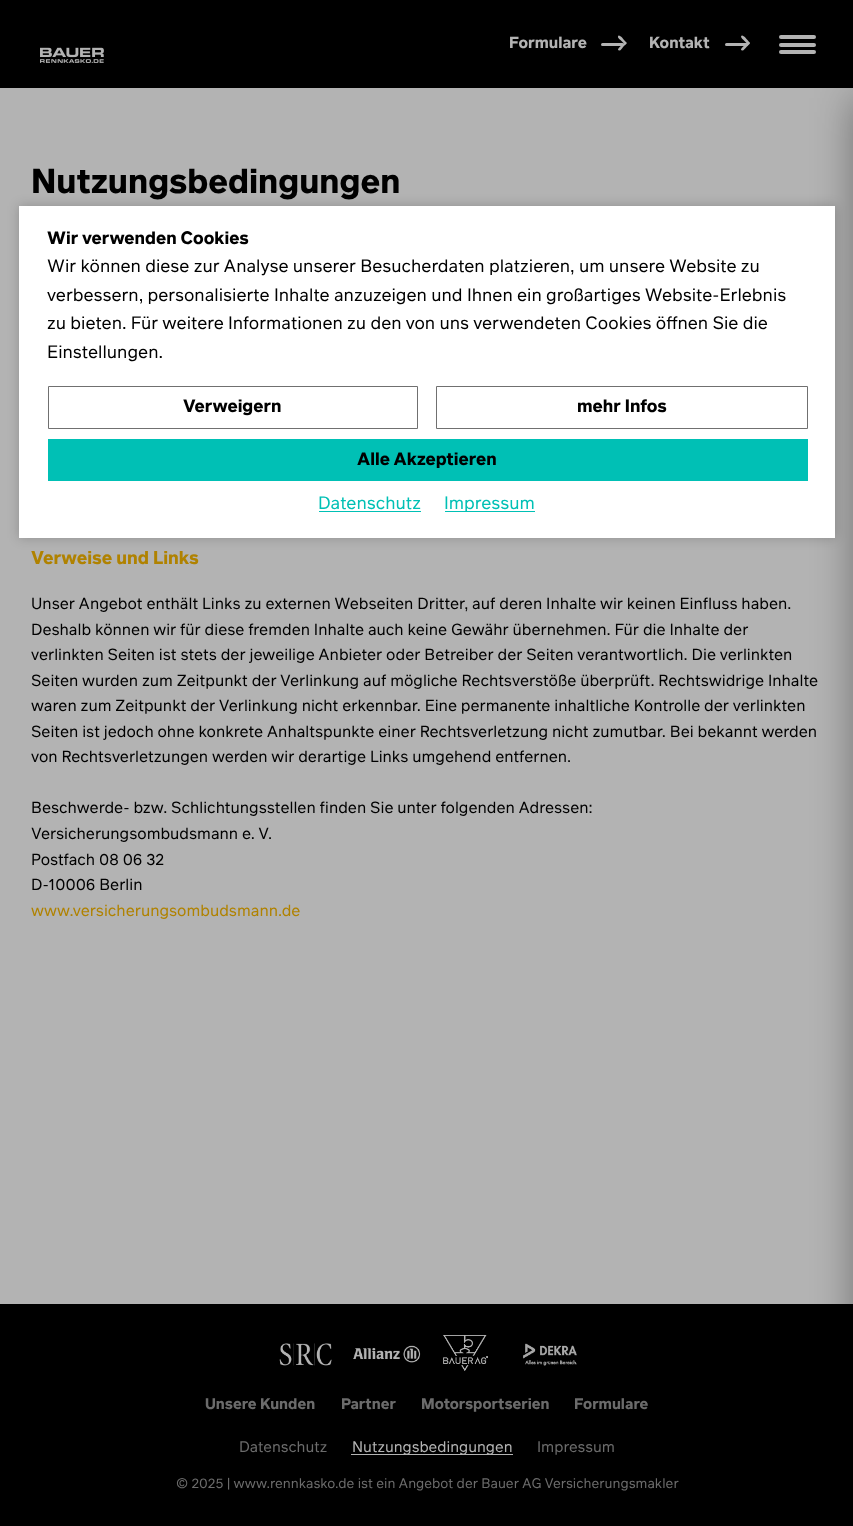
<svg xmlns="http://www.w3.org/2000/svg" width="853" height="1526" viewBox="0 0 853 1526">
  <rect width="100%" height="100%" fill="#b3b3b3"/>
  <path d="M0 1304h853v222H0z" fill="#000"/>
  <path d="M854 98h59v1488H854z" fill="#0000005e" filter="blur(20px)"/>
  <path d="M0 0h853v88H0z" fill="#000"/>
  <rect x="601" y="43" width="23" height="3" rx="1.5" fill="#b3b3b3"/>
  <path d="M624.5 44L621.5 41C620.5 40 617.5 38 618 36.5C618.5 33 624 39.5 624 40L626.5 42.5C627 44 625.5 45 624.5 44Z" fill="#b3b3b3"/>
  <path d="M626 44L623 47C622.5 48 620.5 51 619 50.5C615.5 50 622 45 622.5 44.5L625 42C626 41.5 627 43 626 44Z" fill="#b3b3b3"/>
  <rect x="725" y="43" width="23" height="3" rx="1.5" fill="#b3b3b3"/>
  <path d="M747.5 44L744.5 41C743.5 40 741 38 741 36.5C742 33 747 39.5 747.5 40L749.5 42.5C750 44 748.5 45 747.5 44Z" fill="#b3b3b3"/>
  <path d="M749.5 44L746.5 47C745.5 48 743.5 51 742 50.5C738.5 50 745 45 745.5 44.5L748 42C749.5 41.5 750.5 43 749.5 44Z" fill="#b3b3b3"/>
  <rect x="779" y="35" width="37" height="4" rx="2" fill="#b3b3b3"/>
  <rect x="779" y="43" width="37" height="4" rx="2" fill="#b3b3b3"/>
  <rect x="779" y="50" width="37" height="4" rx="2" fill="#b3b3b3"/>
  <image x="40" y="47" width="64" height="16" href="img/1.png"/>
  <image x="279" y="1343" width="53" height="23" href="img/2.png"/>
  <image x="353" y="1345" width="68" height="18" href="img/3.png"/>
  <image x="443" y="1335" width="45" height="36" href="img/4.png"/>
  <image x="523" y="1343" width="54" height="23" href="img/5.png"/>
  <path d="M351 1454h162v1H351z" fill="#b3b3b3"/>
  <path d="M19 206h816v332H19z" fill="#00000033" filter="blur(6px)"/>
  <path d="M19 206h816v332H19z" fill="#fff"/>
  <path d="M48.5 386.5h369v42H48.5z" fill="none" stroke="#707070"/>
  <path d="M436.5 386.5h371v42H436.5z" fill="none" stroke="#707070"/>
  <path d="M48 439h760v42H48z" fill="#00c0b5"/>
  <path d="M319 511h102v1H319z" fill="#00c0b5"/>
  <path d="M445 511h90v1H445z" fill="#00c0b5"/>
  <g font-family="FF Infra" font-size="15.75" font-weight="bold" fill="#b3b3b3">
    <text x="509" y="48">Formulare</text>
    <text x="649" y="48">Kontakt</text>
  </g>
  <text x="31" y="193" font-family="FF Infra" font-size="33.75" font-weight="bold" fill="#000">Nutzungsbedingungen</text>
  <text x="31" y="564" font-family="FF Infra" font-size="18" font-weight="bold" fill="#b08200">Verweise und Links</text>
  <g font-family="FF Infra" font-size="15.75" fill="#000">
    <text x="31" y="609">Unser Angebot enthält Links zu externen Webseiten Dritter, auf deren Inhalte wir keinen Einfluss haben.</text>
    <text x="31" y="635">Deshalb können wir für diese fremden Inhalte auch keine Gewähr übernehmen. Für die Inhalte der</text>
    <text x="31" y="660">verlinkten Seiten ist stets der jeweilige Anbieter oder Betreiber der Seiten verantwortlich. Die verlinkten</text>
    <text x="31" y="686">Seiten wurden zum Zeitpunkt der Verlinkung auf mögliche Rechtsverstöße überprüft. Rechtswidrige Inhalte</text>
    <text x="31" y="711">waren zum Zeitpunkt der Verlinkung nicht erkennbar. Eine permanente inhaltliche Kontrolle der verlinkten</text>
    <text x="31" y="737">Seiten ist jedoch ohne konkrete Anhaltspunkte einer Rechtsverletzung nicht zumutbar. Bei bekannt werden</text>
    <text x="31" y="762">von Rechtsverletzungen werden wir derartige Links umgehend entfernen.</text>
    <text x="31" y="813">Beschwerde- bzw. Schlichtungsstellen finden Sie unter folgenden Adressen:</text>
    <text x="31" y="839">Versicherungsombudsmann e. V.</text>
    <text x="31" y="865">Postfach 08 06 32</text>
    <text x="31" y="890">D-10006 Berlin</text>
  </g>
  <text x="31" y="916" font-family="FF Infra" font-size="15.75" fill="#b08200">www.versicherungsombudsmann.de</text>
  <g font-family="FF Infra" font-size="15" font-weight="bold" fill="#6b6b6b">
    <text x="205" y="1409">Unsere Kunden</text>
    <text x="341" y="1409">Partner</text>
    <text x="421" y="1409">Motorsportserien</text>
    <text x="574" y="1409">Formulare</text>
  </g>
  <text x="239" y="1452" font-family="FF Infra" font-size="15" fill="#6b6b6b">Datenschutz</text>
  <text x="352" y="1452" font-family="FF Infra" font-size="15" fill="#b3b3b3">Nutzungsbedingungen</text>
  <text x="537" y="1452" font-family="FF Infra" font-size="15" fill="#6b6b6b">Impressum</text>
  <text x="176" y="1488" font-family="FF Infra" font-size="13.5" fill="#6b6b6b">© 2025 | www.rennkasko.de ist ein Angebot der Bauer AG Versicherungsmakler</text>
  <text x="47" y="244" font-family="FF Infra" font-size="17.5" font-weight="bold" fill="#000">Wir verwenden Cookies</text>
  <g font-family="FF Infra" font-size="17.5" fill="#000">
    <text x="47" y="272">Wir können diese zur Analyse unserer Besucherdaten platzieren, um unsere Website zu</text>
    <text x="47" y="301">verbessern, personalisierte Inhalte anzuzeigen und Ihnen ein großartiges Website-Erlebnis</text>
    <text x="47" y="329">zu bieten. Für weitere Informationen zu den von uns verwendeten Cookies öffnen Sie die</text>
    <text x="47" y="358">Einstellungen.</text>
  </g>
  <g font-family="FF Infra" font-size="17.5" font-weight="bold" fill="#000">
    <text x="183" y="412">Verweigern</text>
    <text x="577" y="412">mehr Infos</text>
    <text x="357" y="465">Alle Akzeptieren</text>
  </g>
  <g font-family="FF Infra" font-size="17.5" fill="#00c0b5">
    <text x="318" y="509">Datenschutz</text>
    <text x="444" y="509">Impressum</text>
  </g>
</svg>
